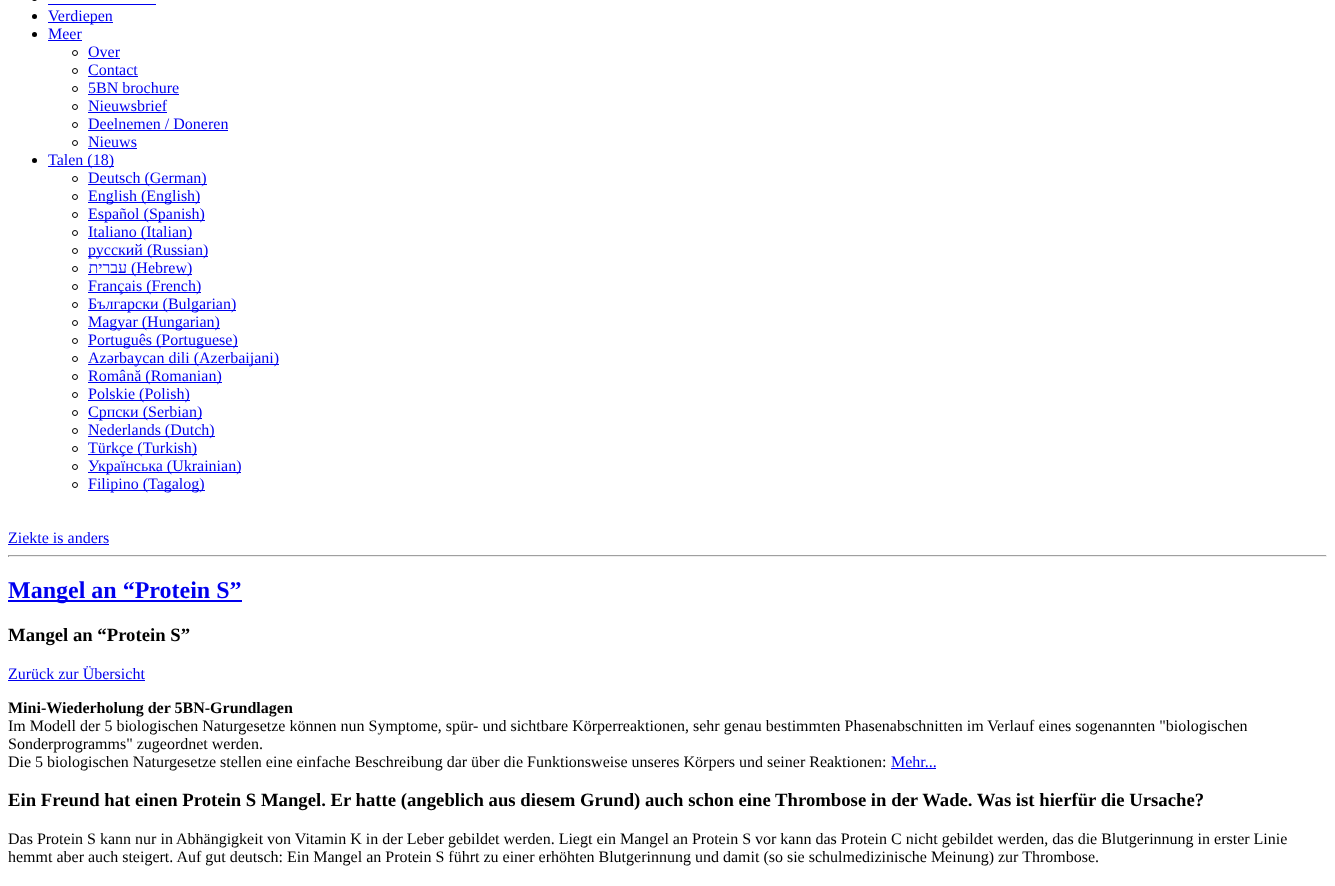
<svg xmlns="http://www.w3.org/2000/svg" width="1335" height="886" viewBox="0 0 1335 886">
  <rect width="100%" height="100%" fill="#fff"/>
  <rect x="32" y="-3" width="5" height="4" rx="2.5" fill="#000"/>
  <path d="M48 4h108v1H48z" fill="#00e"/>
  <circle cx="34.5" cy="16.5" r="2.5" fill="#000"/>
  <path d="M48 22h65v1H48z" fill="#00e"/>
  <circle cx="34.5" cy="34.5" r="2.5" fill="#000"/>
  <path d="M48 40h34v1H48z" fill="#00e"/>
  <circle cx="75" cy="53" r="2.5" fill="none" stroke="#000"/>
  <path d="M88 58h32v1H88z" fill="#00e"/>
  <circle cx="75" cy="71" r="2.5" fill="none" stroke="#000"/>
  <path d="M88 76h50v1H88z" fill="#00e"/>
  <circle cx="75" cy="89" r="2.5" fill="none" stroke="#000"/>
  <path d="M88 94h91v1H88z" fill="#00e"/>
  <circle cx="75" cy="107" r="2.5" fill="none" stroke="#000"/>
  <path d="M88 112h79v1H88z" fill="#00e"/>
  <circle cx="75" cy="125" r="2.5" fill="none" stroke="#000"/>
  <path d="M88 130h140v1H88z" fill="#00e"/>
  <circle cx="75" cy="143" r="2.5" fill="none" stroke="#000"/>
  <path d="M88 148h49v1H88z" fill="#00e"/>
  <circle cx="34.5" cy="160.5" r="2.5" fill="#000"/>
  <path d="M48 166h66v1H48z" fill="#00e"/>
  <circle cx="75" cy="179" r="2.5" fill="none" stroke="#000"/>
  <path d="M88 184h119v1H88z" fill="#00e"/>
  <circle cx="75" cy="197" r="2.5" fill="none" stroke="#000"/>
  <path d="M88 202h112v1H88z" fill="#00e"/>
  <circle cx="75" cy="215" r="2.5" fill="none" stroke="#000"/>
  <path d="M88 220h117v1H88z" fill="#00e"/>
  <circle cx="75" cy="233" r="2.5" fill="none" stroke="#000"/>
  <path d="M88 238h104v1H88z" fill="#00e"/>
  <circle cx="75" cy="251" r="2.5" fill="none" stroke="#000"/>
  <path d="M88 256h120v1H88z" fill="#00e"/>
  <circle cx="75" cy="269" r="2.5" fill="none" stroke="#000"/>
  <path d="M88 274h104v1H88z" fill="#00e"/>
  <circle cx="75" cy="287" r="2.5" fill="none" stroke="#000"/>
  <path d="M88 292h113v1H88z" fill="#00e"/>
  <circle cx="75" cy="305" r="2.5" fill="none" stroke="#000"/>
  <path d="M88 310h148v1H88z" fill="#00e"/>
  <circle cx="75" cy="323" r="2.5" fill="none" stroke="#000"/>
  <path d="M88 328h132v1H88z" fill="#00e"/>
  <circle cx="75" cy="341" r="2.5" fill="none" stroke="#000"/>
  <path d="M88 346h150v1H88z" fill="#00e"/>
  <circle cx="75" cy="359" r="2.5" fill="none" stroke="#000"/>
  <path d="M88 364h191v1H88z" fill="#00e"/>
  <circle cx="75" cy="377" r="2.5" fill="none" stroke="#000"/>
  <path d="M88 382h134v1H88z" fill="#00e"/>
  <circle cx="75" cy="395" r="2.5" fill="none" stroke="#000"/>
  <path d="M88 400h102v1H88z" fill="#00e"/>
  <circle cx="75" cy="413" r="2.5" fill="none" stroke="#000"/>
  <path d="M88 418h114v1H88z" fill="#00e"/>
  <circle cx="75" cy="431" r="2.5" fill="none" stroke="#000"/>
  <path d="M88 436h127v1H88z" fill="#00e"/>
  <circle cx="75" cy="449" r="2.5" fill="none" stroke="#000"/>
  <path d="M88 454h109v1H88z" fill="#00e"/>
  <circle cx="75" cy="467" r="2.5" fill="none" stroke="#000"/>
  <path d="M88 472h153v1H88z" fill="#00e"/>
  <circle cx="75" cy="485" r="2.5" fill="none" stroke="#000"/>
  <path d="M88 490h117v1H88z" fill="#00e"/>
  <path d="M8 544h101v1H8z" fill="#00e"/>
  <path d="M8 555h1319v1H8z" fill="#9f9f9f"/>
  <path d="M1326 555h1v2H1326z" fill="#eee"/>
  <path d="M8 556h1319v1H8z" fill="#eee"/>
  <path d="M8 555h1v2H8z" fill="#9f9f9f"/>
  <path d="M8 600h234v2H8z" fill="#00e"/>
  <path d="M8 680h137v1H8z" fill="#00e"/>
  <path d="M891 768h45v1H891z" fill="#00e"/>
  <g font-family="Liberation Serif" font-size="16" fill="#00e">
    <text x="48" y="21">Verdiepen</text>
    <text x="48" y="39">Meer</text>
    <text x="88" y="57">Over</text>
    <text x="88" y="75">Contact</text>
    <text x="88" y="93">5BN brochure</text>
    <text x="88" y="111">Nieuwsbrief</text>
    <text x="88" y="129">Deelnemen / Doneren</text>
    <text x="88" y="147">Nieuws</text>
    <text x="48" y="165">Talen (18)</text>
    <text x="88" y="183">Deutsch (German)</text>
    <text x="88" y="201">English (English)</text>
    <text x="88" y="219">Español (Spanish)</text>
    <text x="88" y="237">Italiano (Italian)</text>
    <text x="88" y="255">русский (Russian)</text>
  </g>
  <text x="127" y="273" font-family="Liberation Serif" font-size="16" direction="rtl" fill="#00e">עברית</text>
  <g font-family="Liberation Serif" font-size="16" fill="#00e">
    <text x="131" y="273">(Hebrew)</text>
    <text x="88" y="291">Français (French)</text>
    <text x="88" y="309">Български (Bulgarian)</text>
    <text x="88" y="327">Magyar (Hungarian)</text>
    <text x="88" y="345">Português (Portuguese)</text>
    <text x="88" y="363">Azərbaycan dili (Azerbaijani)</text>
    <text x="88" y="381">Română (Romanian)</text>
    <text x="88" y="399">Polskie (Polish)</text>
    <text x="88" y="417">Српски (Serbian)</text>
    <text x="88" y="435">Nederlands (Dutch)</text>
    <text x="88" y="453">Türkçe (Turkish)</text>
    <text x="88" y="471">Українська (Ukrainian)</text>
    <text x="88" y="489">Filipino (Tagalog)</text>
    <text x="8" y="543">Ziekte is anders</text>
  </g>
  <text x="8" y="598" font-family="Liberation Serif" font-size="24" font-weight="bold" fill="#00e">Mangel an “Protein S”</text>
  <text x="8" y="641" font-family="Liberation Serif" font-size="18.72" font-weight="bold" fill="#000">Mangel an “Protein S”</text>
  <text x="8" y="679" font-family="Liberation Serif" font-size="16" fill="#00e">Zurück zur Übersicht</text>
  <text x="8" y="713" font-family="Liberation Serif" font-size="16" font-weight="bold" fill="#000">Mini-Wiederholung der 5BN-Grundlagen</text>
  <g font-family="Liberation Serif" font-size="16" fill="#000">
    <text x="8" y="731">Im Modell der 5 biologischen Naturgesetze können nun Symptome, spür- und sichtbare Körperreaktionen, sehr genau bestimmten Phasenabschnitten im Verlauf eines sogenannten "biologischen</text>
    <text x="8" y="749">Sonderprogramms" zugeordnet werden.</text>
    <text x="8" y="767">Die 5 biologischen Naturgesetze stellen eine einfache Beschreibung dar über die Funktionsweise unseres Körpers und seiner Reaktionen:</text>
  </g>
  <text x="891" y="767" font-family="Liberation Serif" font-size="16" fill="#00e">Mehr...</text>
  <text x="8" y="806" font-family="Liberation Serif" font-size="18.72" font-weight="bold" fill="#000">Ein Freund hat einen Protein S Mangel. Er hatte (angeblich aus diesem Grund) auch schon eine Thrombose in der Wade. Was ist hierfür die Ursache?</text>
  <g font-family="Liberation Serif" font-size="16" fill="#000">
    <text x="8" y="844">Das Protein S kann nur in Abhängigkeit von Vitamin K in der Leber gebildet werden. Liegt ein Mangel an Protein S vor kann das Protein C nicht gebildet werden, das die Blutgerinnung in erster Linie</text>
    <text x="8" y="862">hemmt aber auch steigert. Auf gut deutsch: Ein Mangel an Protein S führt zu einer erhöhten Blutgerinnung und damit (so sie schulmedizinische Meinung) zur Thrombose.</text>
  </g>
</svg>
